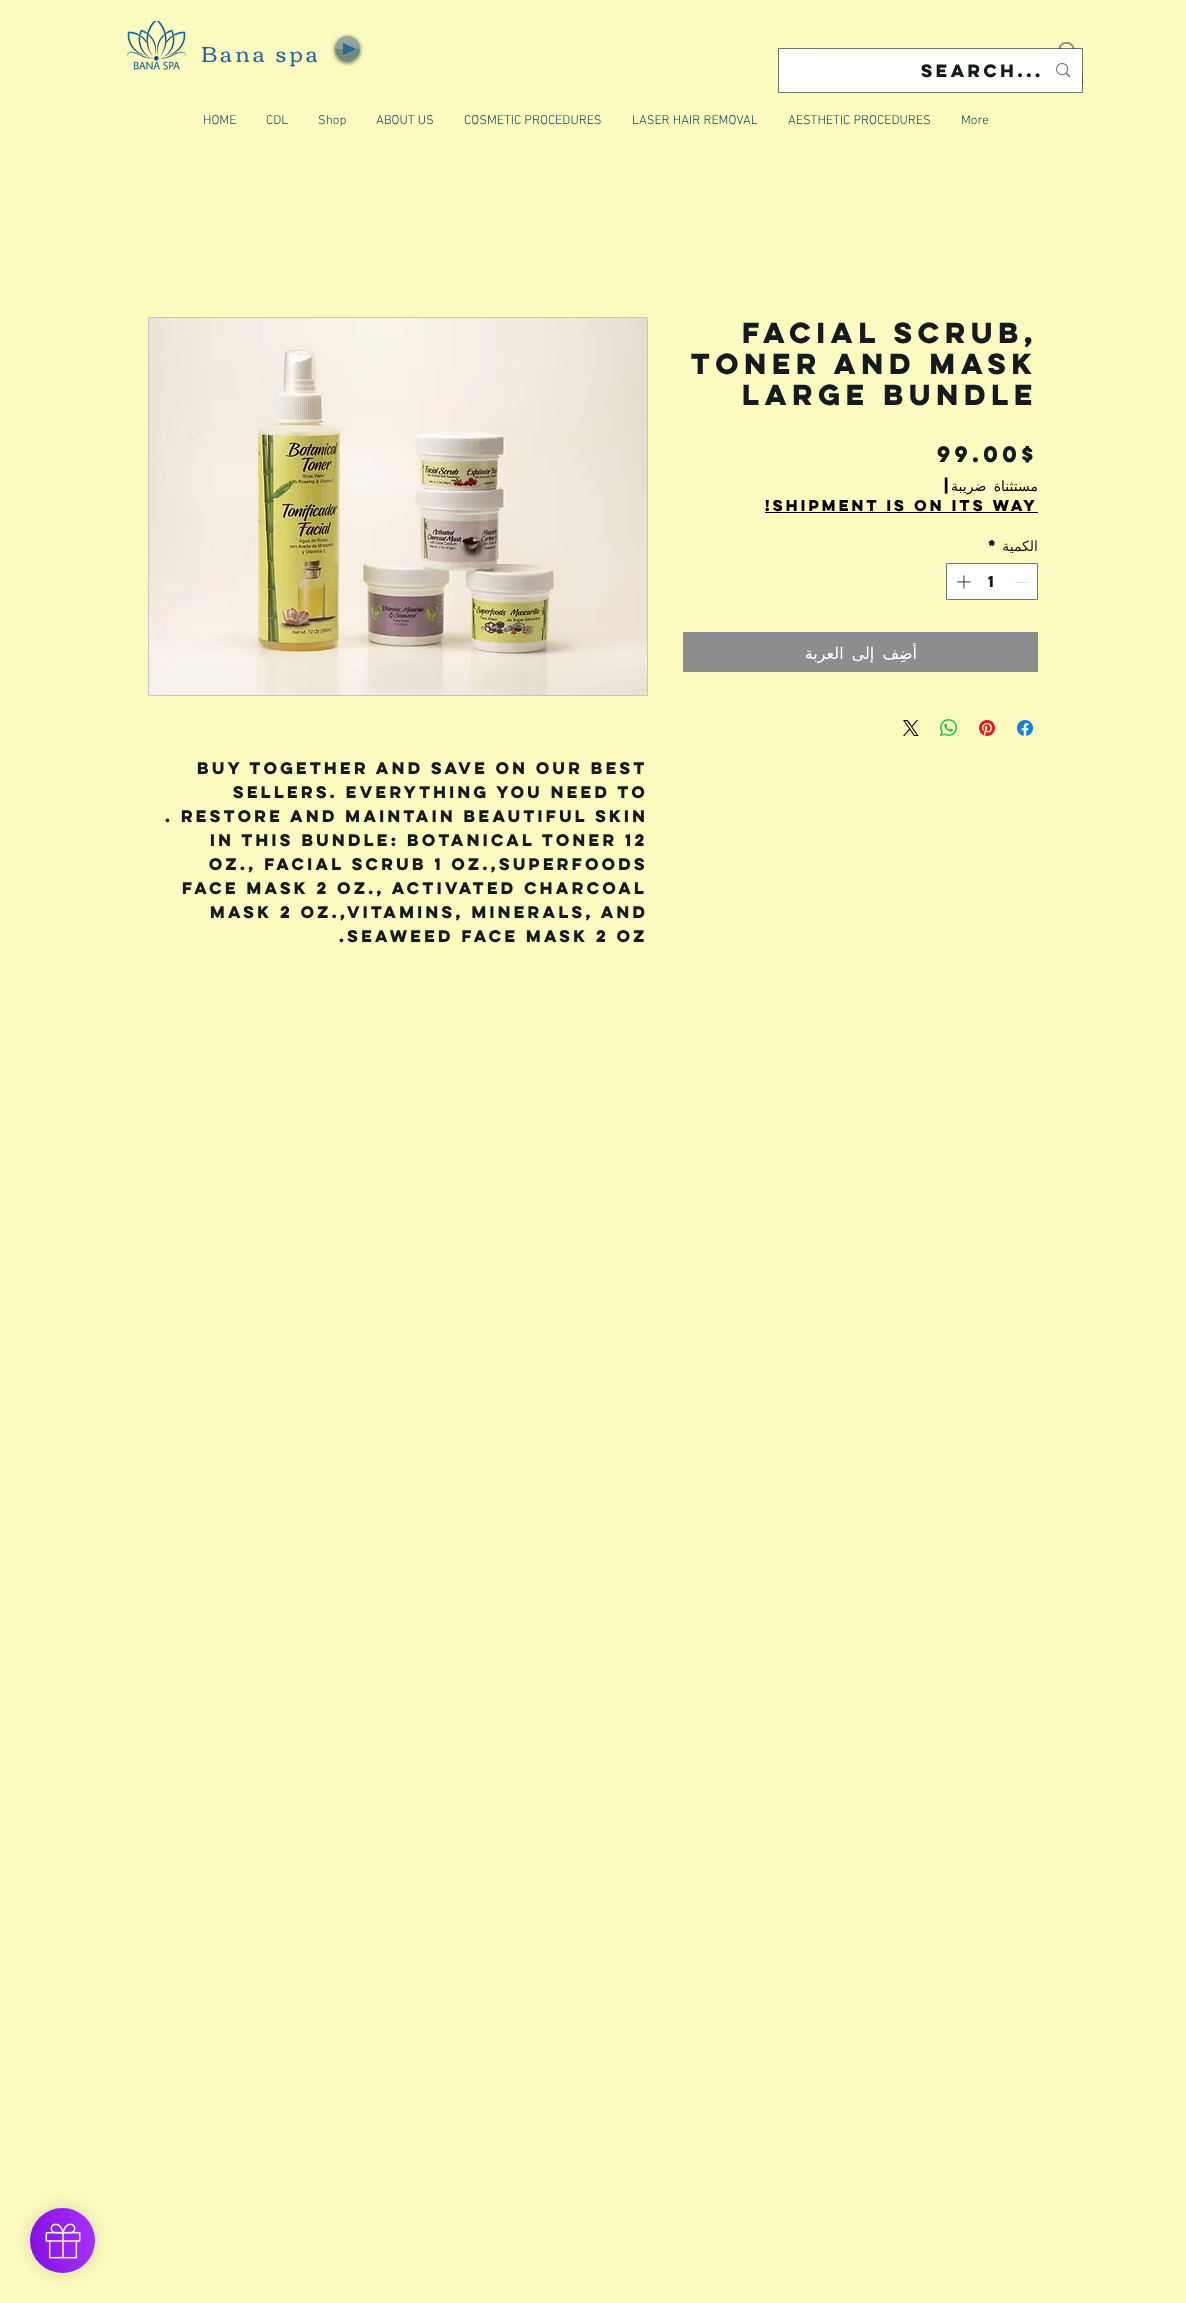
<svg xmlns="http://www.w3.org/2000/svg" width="1186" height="2303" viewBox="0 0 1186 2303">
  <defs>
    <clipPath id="clip1"><path d="M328 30H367V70H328ZM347.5 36C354.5 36 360 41.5 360 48.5V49.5C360 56.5 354.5 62 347.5 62C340.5 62 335 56.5 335 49.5V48.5C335 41.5 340.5 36 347.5 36Z" clip-rule="evenodd"/></clipPath>
    <linearGradient id="g1" gradientUnits="userSpaceOnUse" x1="98" y1="2237" x2="27" y2="2244"><stop offset="0.05" stop-color="#a532ff"/><stop offset="0.97" stop-color="#850fe2"/></linearGradient>
  </defs>
  <rect width="100%" height="100%" fill="#fbfbc0"/>
  <image x="126" y="21" width="61" height="49" href="img/1.png"/>
  <g clip-path="url(#clip1)">
    <rect x="335" y="37" width="25" height="26" rx="12.5" fill="#00000099" filter="blur(2px)"/>
  </g>
  <rect x="335" y="36" width="25" height="26" rx="12.5" fill="#0e3c538a"/>
  <image x="335" y="36" width="25" height="26" href="img/2.png"/>
  <path d="M343 55V43L356 49Z" fill="#29679b"/>
  <image x="1058" y="42" width="26" height="42" href="img/3.png"/>
  <path d="M778.5 48.5h304v44H778.5z" fill="none" stroke="#161a1d99"/>
  <path d="M779 49h303v43H779z" fill="#fff"/>
  <image x="1056" y="63" width="14" height="15" href="img/4.png"/>
  <path d="M765 512h273v1H765z" fill="#000"/>
  <path d="M946.5 563.5h91v36H946.5z" fill="#fff" stroke="#737677"/>
  <image x="957" y="575" width="14" height="14" href="img/5.png"/>
  <path d="M1015 582h13v1H1015z" fill="#e3e3e3"/>
  <path d="M683 632h355v40H683z" fill="#8b8d8e"/>
  <image x="903" y="720" width="16" height="16" href="img/6.png"/>
  <image x="940" y="719" width="17" height="17" href="img/7.png"/>
  <image x="979" y="720" width="16" height="16" href="img/8.png"/>
  <image x="1017" y="720" width="16" height="16" href="img/9.png"/>
  <path d="M148.5 317.5h499v378H148.5z" fill="none" stroke="#c5c6c7"/>
  <image x="149" y="318" width="498" height="377" href="img/10.png"/>
  <rect x="30" y="2208" width="65" height="65" rx="32.5" fill="#00000026" filter="blur(8px)"/>
  <circle cx="62.5" cy="2240.5" r="32.5" fill="url(#g1)"/>
  <image x="45" y="2223" width="36" height="36" href="img/11.png"/>
  <text x="201" y="62" font-family="Corben" font-size="22" letter-spacing="3.25" fill="#29679b">Bana spa</text>
  <text x="921" y="77" font-family="'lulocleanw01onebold'" font-size="16" font-weight="bold" fill="#161a1d">Search...</text>
  <g font-family="'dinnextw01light'" font-size="13" font-weight="300" fill="#0e3c53">
    <text x="203" y="124">HOME</text>
    <text x="266" y="124">CDL</text>
    <text x="318" y="124">Shop</text>
    <text x="376" y="124">ABOUT US</text>
    <text x="464" y="124">COSMETIC PROCEDURES</text>
    <text x="632" y="124">LASER HAIR REMOVAL</text>
    <text x="788" y="124">AESTHETIC PROCEDURES</text>
    <text x="961" y="124">More</text>
  </g>
  <g font-family="'lulocleanw01onebold'" font-size="26" font-weight="bold" fill="#161a1d">
    <text x="742" y="343">Facial Scrub,</text>
    <text x="691" y="374">Toner and Mask</text>
    <text x="742" y="405">Large Bundle</text>
  </g>
  <text x="937" y="462" font-family="'lulocleanw01onebold'" font-size="20" font-weight="bold" fill="#161a1d">99.00$</text>
  <text x="944" y="491" font-family="'lulocleanw01onebold'" font-size="14" font-weight="bold" fill="#000">|</text>
  <text x="1038" y="491" word-spacing="3" font-family="DejaVu Sans" font-size="14" direction="rtl" fill="#000">مستثناة ضريبة</text>
  <text x="765" y="511" font-family="'lulocleanw01onebold'" font-size="14" font-weight="bold" fill="#000">!Shipment is on its way</text>
  <text x="988" y="551" font-family="'lulocleanw01onebold'" font-size="14" font-weight="bold" fill="#161a1d">*</text>
  <text x="1038" y="551" font-family="DejaVu Sans" font-size="14" direction="rtl" fill="#161a1d">الكمية</text>
  <text x="988" y="587" font-family="'lulocleanw01onebold'" font-size="14" font-weight="bold" fill="#161a1d">1</text>
  <text x="917" y="659" word-spacing="3" font-family="DejaVu Sans" font-size="16" direction="rtl" fill="#fff">أضِف إلى العربة</text>
  <g font-family="'lulocleanw01onebold'" font-size="15" font-weight="bold" fill="#161a1d">
    <text x="197" y="774">Buy together and save on our best</text>
    <text x="233" y="798">sellers. Everything you need to</text>
    <text x="165" y="822">. restore and maintain beautiful skin</text>
    <text x="210" y="846">In this bundle: Botanical Toner 12</text>
    <text x="209" y="870">Oz., Facial Scrub 1 oz.,Superfoods</text>
    <text x="182" y="894">Face Mask 2 Oz., Activated Charcoal</text>
    <text x="210" y="918">Mask 2 Oz.,Vitamins, Minerals, and</text>
    <text x="339" y="942">.Seaweed Face Mask 2 Oz</text>
  </g>
</svg>
